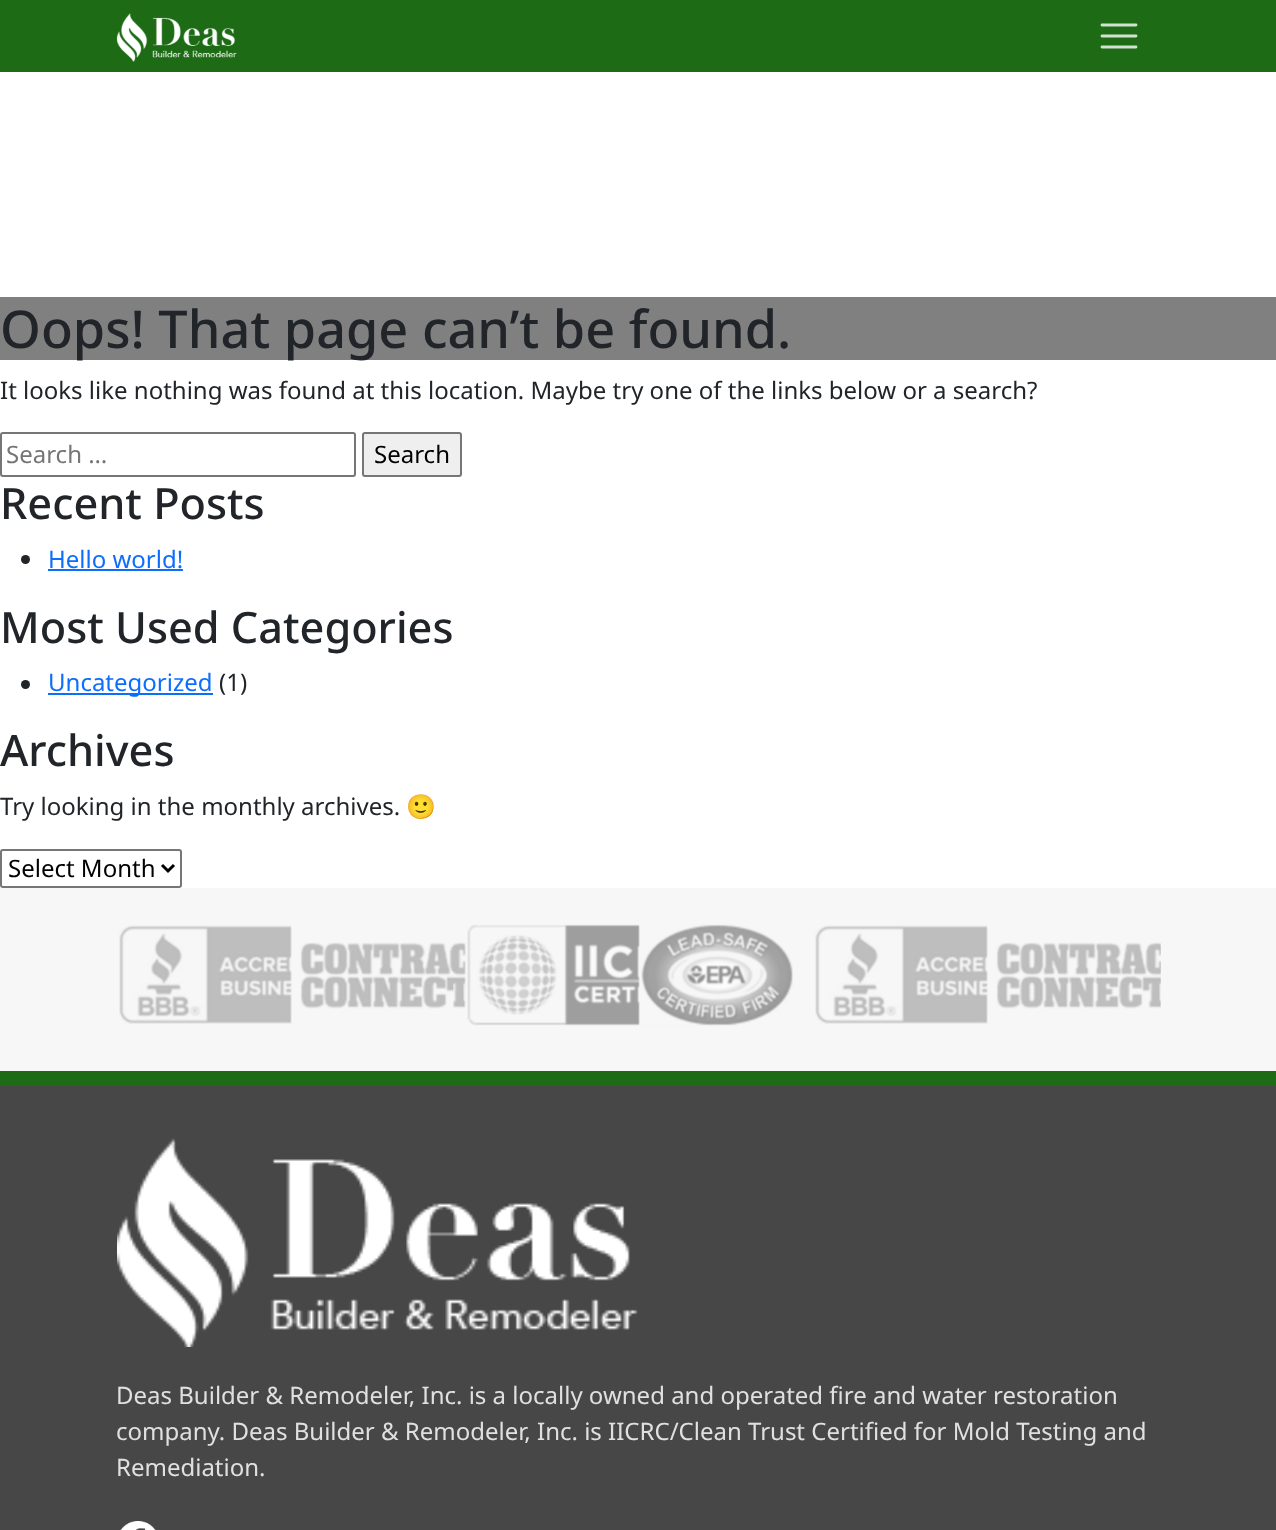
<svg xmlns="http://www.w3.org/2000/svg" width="1276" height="1530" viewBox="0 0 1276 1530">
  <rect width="100%" height="100%" fill="#fff"/>
  <path d="M0 0h1276v72H0z" fill="#1d6c15"/>
  <image x="116" y="13" width="121" height="49" href="img/1.png"/>
  <path d="M1102 25H1136M1102 36H1136M1102 47H1136" fill="none" stroke="#d2e2d0" stroke-width="2.8" stroke-linecap="round"/>
  <path d="M0 297h1276v63H0z" fill="#808080"/>
  <rect x="1" y="433" width="354" height="43" rx="2" fill="none" stroke="#767676" stroke-width="2"/>
  <rect x="363" y="433" width="98" height="43" rx="2" fill="#efefef" stroke="#767676" stroke-width="2"/>
  <circle cx="25.5" cy="559.5" r="4.5" fill="#212529"/>
  <path d="M48 569h135v2H48z" fill="#0d6efd"/>
  <circle cx="25.5" cy="684.5" r="4.5" fill="#212529"/>
  <path d="M48 693h165v2H48z" fill="#0d6efd"/>
  <rect x="1" y="850" width="180" height="37" rx="2" fill="none" stroke="#767676" stroke-width="2"/>
  <path d="M162 865L168 871L174 865" fill="none" stroke="#000" stroke-width="3"/>
  <path d="M0 888h1276v183H0z" fill="#f7f7f7"/>
  <image x="119" y="925" width="173" height="99" href="img/2.png"/>
  <image x="290" y="925" width="176" height="99" href="img/3.png"/>
  <image x="464" y="924" width="244" height="102" href="img/4.png"/>
  <image x="638" y="924" width="155" height="102" href="img/5.png"/>
  <image x="815" y="925" width="173" height="99" href="img/6.png"/>
  <image x="986" y="925" width="175" height="99" href="img/7.png"/>
  <path d="M1160 943h1v64H1160z" fill="#f7f7f740"/>
  <path d="M0 1086h1276v444H0z" fill="#474747"/>
  <path d="M0 1071h1276v15H0z" fill="#1d6c15"/>
  <image x="117" y="1138" width="521" height="209" href="img/8.png"/>
  <image x="120" y="1521" width="36" height="9" href="img/9.png"/>
  <text x="0" y="348" font-family="Noto Sans" font-size="52.2" font-weight="500" fill="#212529">Oops! That page can’t be found.</text>
  <text x="0" y="399" font-family="Noto Sans" font-size="24" fill="#212529">It looks like nothing was found at this location. Maybe try one of the links below or a search?</text>
  <text x="6" y="463" font-family="Noto Sans" font-size="24" fill="#757575">Search …</text>
  <text x="374" y="463" font-family="Noto Sans" font-size="24" fill="#000">Search</text>
  <text x="0" y="519" font-family="Noto Sans" font-size="43.25" font-weight="500" fill="#212529">Recent Posts</text>
  <text x="48" y="568" font-family="Noto Sans" font-size="24" fill="#0d6efd">Hello world!</text>
  <text x="0" y="643" font-family="Noto Sans" font-size="43.25" font-weight="500" fill="#212529">Most Used Categories</text>
  <text x="48" y="691" font-family="Noto Sans" font-size="24" fill="#0d6efd">Uncategorized</text>
  <text x="219" y="691" font-family="Noto Sans" font-size="24" fill="#212529">(1)</text>
  <text x="0" y="766" font-family="Noto Sans" font-size="43.25" font-weight="500" fill="#212529">Archives</text>
  <text x="0" y="815" font-family="Noto Sans" font-size="24" fill="#212529">Try looking in the monthly archives.</text>
  <text x="406" y="815" font-family="Noto Color Emoji" font-size="24" fill="#212529">🙂</text>
  <text x="8" y="877" font-family="Noto Sans" font-size="24" fill="#000">Select Month</text>
  <g font-family="Noto Sans" font-size="24" fill="#e0e0e0">
    <text x="116" y="1404">Deas Builder &amp; Remodeler, Inc. is a locally owned and operated fire and water restoration</text>
    <text x="116" y="1440">company. Deas Builder &amp; Remodeler, Inc. is IICRC/Clean Trust Certified for Mold Testing and</text>
    <text x="116" y="1476">Remediation.</text>
  </g>
</svg>
